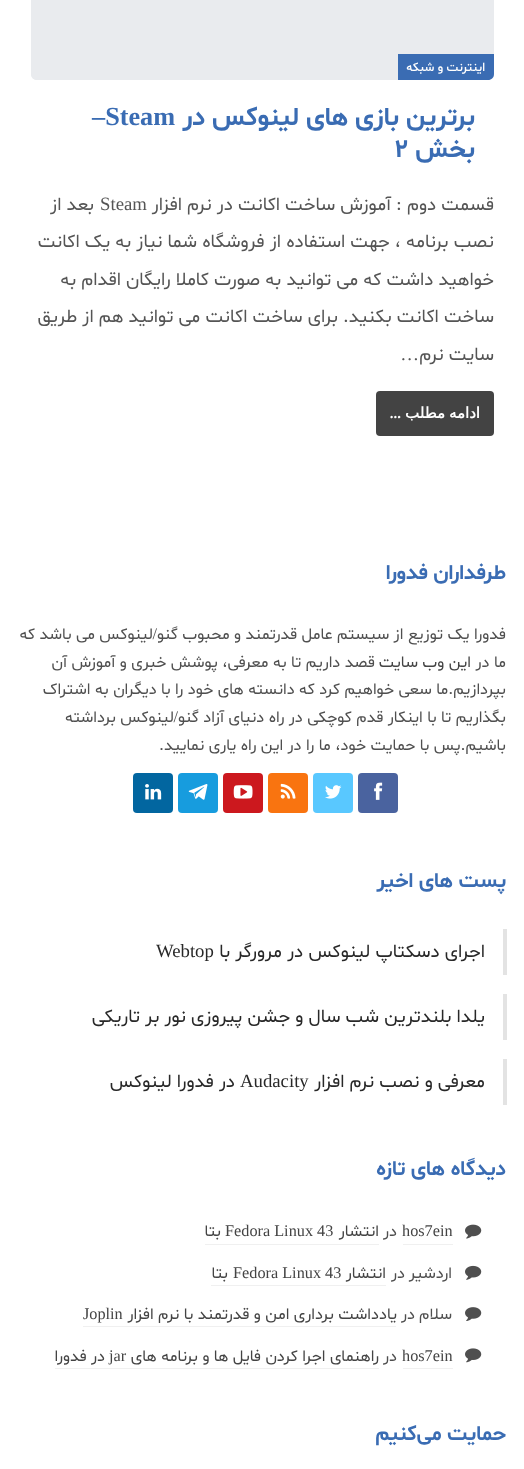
<svg xmlns="http://www.w3.org/2000/svg" width="524" height="1469" viewBox="0 0 524 1469">
  <defs>
    <linearGradient id="g1" gradientUnits="userSpaceOnUse" x1="-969" y1="346" x2="281" y2="346"><stop offset="0" stop-color="#e9ebee"/><stop offset="0.2" stop-color="#f4f5f6"/><stop offset="0.4" stop-color="#e9ebee"/><stop offset="1" stop-color="#e9ebee"/></linearGradient>
  </defs>
  <rect width="100%" height="100%" fill="#fff"/>
  <rect x="31" y="-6" width="463" height="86" rx="6" fill="#e9ebee"/>
  <path d="M37-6H281V80H37C33.5 80 31 77.5 31 74V0C31-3.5 33.5-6 37-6Z" fill="url(#g1)"/>
  <path d="M398 54H494V74C494 77.5 491.5 80 488 80H398Z" fill="#3a6cb3"/>
  <rect x="376" y="391" width="118" height="45" rx="4" fill="#434343"/>
  <rect x="358" y="773" width="40" height="40" rx="4" fill="#4a639f"/>
  <image x="374" y="782" width="9" height="18" href="img/1.png"/>
  <rect x="313" y="773" width="40" height="40" rx="4" fill="#59c8ff"/>
  <image x="325" y="785" width="17" height="14" href="img/2.png"/>
  <rect x="268" y="773" width="40" height="40" rx="4" fill="#f97410"/>
  <image x="280" y="783" width="16" height="16" href="img/3.png"/>
  <rect x="223" y="773" width="40" height="40" rx="4" fill="#cc181e"/>
  <image x="233" y="785" width="20" height="14" href="img/4.png"/>
  <rect x="178" y="773" width="40" height="40" rx="4" fill="#179cde"/>
  <image x="188" y="784" width="20" height="16" href="img/5.png"/>
  <rect x="133" y="773" width="40" height="40" rx="4" fill="#0266a0"/>
  <image x="145" y="784" width="17" height="16" href="img/6.png"/>
  <path d="M503 929h4v46H503z" fill="#e3e3e3"/>
  <path d="M503 994h4v46H503z" fill="#e3e3e3"/>
  <path d="M503 1059h4v46H503z" fill="#e3e3e3"/>
  <image x="465" y="1224" width="17" height="15" href="img/7.png"/>
  <path d="M403 1244h50v1H403z" fill="#f0f0f0"/>
  <path d="M205 1244h174v1H205z" fill="#f0f0f0"/>
  <image x="465" y="1265" width="17" height="15" href="img/8.png"/>
  <path d="M211 1285h175v1H211z" fill="#f0f0f0"/>
  <image x="465" y="1307" width="17" height="14" href="img/9.png"/>
  <path d="M83 1326h313v1H83z" fill="#f0f0f0"/>
  <image x="465" y="1348" width="17" height="15" href="img/10.png"/>
  <path d="M403 1368h50v1H403z" fill="#f0f0f0"/>
  <path d="M55 1368h324v1H55z" fill="#f0f0f0"/>
  <text x="485" y="71" font-family="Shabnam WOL" font-size="12.5" font-weight="500" direction="rtl" fill="#fff">اینترنت و شبکه</text>
  <text x="475" y="125" font-family="Shabnam WOL" font-size="26.25" font-weight="bold" direction="rtl" fill="#3a6cb3">برترین بازی های لینوکس در</text>
  <text x="92" y="125" font-family="Liberation Serif" font-size="26.25" font-weight="bold" fill="#3a6cb3">–Steam</text>
  <text x="475" y="157" font-family="Shabnam WOL" font-size="26.25" font-weight="bold" direction="rtl" fill="#3a6cb3">بخش</text>
  <text x="394" y="157" font-family="Shabnam WOL" font-size="26.25" font-weight="bold" fill="#3a6cb3">۲</text>
  <text x="494" y="210" font-family="Shabnam WOL" font-size="18.75" direction="rtl" fill="#555">قسمت دوم : آموزش ساخت اکانت در نرم افزار</text>
  <text x="100" y="210" font-family="Liberation Serif" font-size="18.75" fill="#555">Steam</text>
  <g font-family="Shabnam WOL" font-size="18.75" direction="rtl" fill="#555">
    <text x="94" y="210">بعد از</text>
    <text x="494" y="247">نصب برنامه ، جهت استفاده از فروشگاه شما نیاز به یک اکانت</text>
    <text x="494" y="285">خواهید داشت که می توانید به صورت کاملا رایگان اقدام به</text>
    <text x="494" y="322">ساخت اکانت بکنید. برای ساخت اکانت می توانید هم از طریق</text>
    <text x="494" y="360">سایت نرم</text>
  </g>
  <text x="419" y="360" font-family="Liberation Serif" font-size="18.75" direction="rtl" fill="#555">…</text>
  <text x="480" y="418" word-spacing="-1" font-family="DejaVu Sans" font-size="15" font-weight="bold" direction="rtl" fill="#fff">ادامه مطلب</text>
  <text x="401" y="418" font-family="Liberation Serif" font-size="15" font-weight="bold" direction="rtl" fill="#fff">...</text>
  <text x="506" y="579" font-family="Shabnam WOL" font-size="21.25" font-weight="bold" direction="rtl" fill="#3a6cb3">طرفداران فدورا</text>
  <text x="157" y="639" font-family="Liberation Serif" font-size="16.25" direction="rtl" fill="#4f4f4f">/</text>
  <g font-family="Shabnam WOL" font-size="16.25" direction="rtl" fill="#4f4f4f">
    <text x="506" y="639">فدورا یک توزیع از سیستم عامل قدرتمند و محبوب گنو</text>
    <text x="153" y="639">لینوکس می باشد که</text>
    <text x="506" y="667">ما در</text>
  </g>
  <text x="471" y="667" font-family="Shabnam WOL" font-size="16.25" direction="rtl" fill="#444">این وب سایت</text>
  <g font-family="Shabnam WOL" font-size="16.25" direction="rtl" fill="#4f4f4f">
    <text x="375" y="667">قصد داریم تا به معرفی، پوشش خبری و آموزش آن</text>
    <text x="506" y="694">بپردازیم.ما سعی خواهیم کرد که دانسته های خود را با دیگران به اشتراک</text>
    <text x="506" y="722">بگذاریم تا با اینکار قدم کوچکی در راه دنیای آزاد گنو</text>
  </g>
  <text x="178" y="722" font-family="Liberation Serif" font-size="16.25" direction="rtl" fill="#4f4f4f">/</text>
  <g font-family="Shabnam WOL" font-size="16.25" direction="rtl" fill="#4f4f4f">
    <text x="174" y="722">لینوکس برداشته</text>
    <text x="506" y="750">باشیم.پس با حمایت خود، ما را در این راه یاری نمایید.</text>
  </g>
  <text x="506" y="887" font-family="Shabnam WOL" font-size="21.25" font-weight="bold" direction="rtl" fill="#3a6cb3">پست های اخیر</text>
  <text x="485" y="957" font-family="Shabnam WOL" font-size="18.75" direction="rtl" fill="#282828">اجرای دسکتاپ لینوکس در مرورگر با</text>
  <text x="156" y="957" font-family="Liberation Serif" font-size="18.75" fill="#282828">Webtop</text>
  <g font-family="Shabnam WOL" font-size="18.75" direction="rtl" fill="#282828">
    <text x="485" y="1022">یلدا بلندترین شب سال و جشن پیروزی نور بر تاریکی</text>
    <text x="485" y="1087">معرفی و نصب نرم افزار</text>
  </g>
  <text x="240" y="1087" font-family="Liberation Serif" font-size="18.75" fill="#282828">Audacity</text>
  <text x="235" y="1087" font-family="Shabnam WOL" font-size="18.75" direction="rtl" fill="#282828">در فدورا لینوکس</text>
  <text x="506" y="1175" font-family="Shabnam WOL" font-size="21.25" font-weight="bold" direction="rtl" fill="#3a6cb3">دیدگاه های تازه</text>
  <text x="402" y="1236" font-family="Liberation Serif" font-size="16.25" fill="#444">hos7ein</text>
  <text x="397" y="1236" font-family="Shabnam WOL" font-size="16.25" direction="rtl" fill="#4f4f4f">در</text>
  <text x="379" y="1236" font-family="Shabnam WOL" font-size="16.25" direction="rtl" fill="#444">انتشار</text>
  <text x="225" y="1236" font-family="Liberation Serif" font-size="16.25" fill="#444">Fedora Linux 43</text>
  <text x="221" y="1236" font-family="Shabnam WOL" font-size="16.25" direction="rtl" fill="#444">بتا</text>
  <g font-family="Shabnam WOL" font-size="16.25" direction="rtl" fill="#4f4f4f">
    <text x="452" y="1278">اردشیر</text>
    <text x="405" y="1278">در</text>
  </g>
  <text x="386" y="1278" font-family="Shabnam WOL" font-size="16.25" direction="rtl" fill="#444">انتشار</text>
  <text x="233" y="1278" font-family="Liberation Serif" font-size="16.25" fill="#444">Fedora Linux 43</text>
  <text x="228" y="1278" font-family="Shabnam WOL" font-size="16.25" direction="rtl" fill="#444">بتا</text>
  <g font-family="Shabnam WOL" font-size="16.25" direction="rtl" fill="#4f4f4f">
    <text x="452" y="1319">سلام</text>
    <text x="415" y="1319">در</text>
  </g>
  <text x="397" y="1319" font-family="Shabnam WOL" font-size="16.25" direction="rtl" fill="#444">یادداشت برداری امن و قدرتمند با نرم افزار</text>
  <g font-family="Liberation Serif" font-size="16.25" fill="#444">
    <text x="83" y="1319">Joplin</text>
    <text x="402" y="1361">hos7ein</text>
  </g>
  <text x="397" y="1361" font-family="Shabnam WOL" font-size="16.25" direction="rtl" fill="#4f4f4f">در</text>
  <text x="379" y="1361" font-family="Shabnam WOL" font-size="16.25" direction="rtl" fill="#444">راهنمای اجرا کردن فایل ها و برنامه های</text>
  <text x="109" y="1361" font-family="Liberation Serif" font-size="16.25" fill="#444">jar</text>
  <text x="105" y="1361" font-family="Shabnam WOL" font-size="16.25" direction="rtl" fill="#444">در فدورا</text>
  <text x="506" y="1440" font-family="Shabnam WOL" font-size="21.25" font-weight="bold" direction="rtl" fill="#3a6cb3">حمایت می‌کنیم</text>
</svg>
